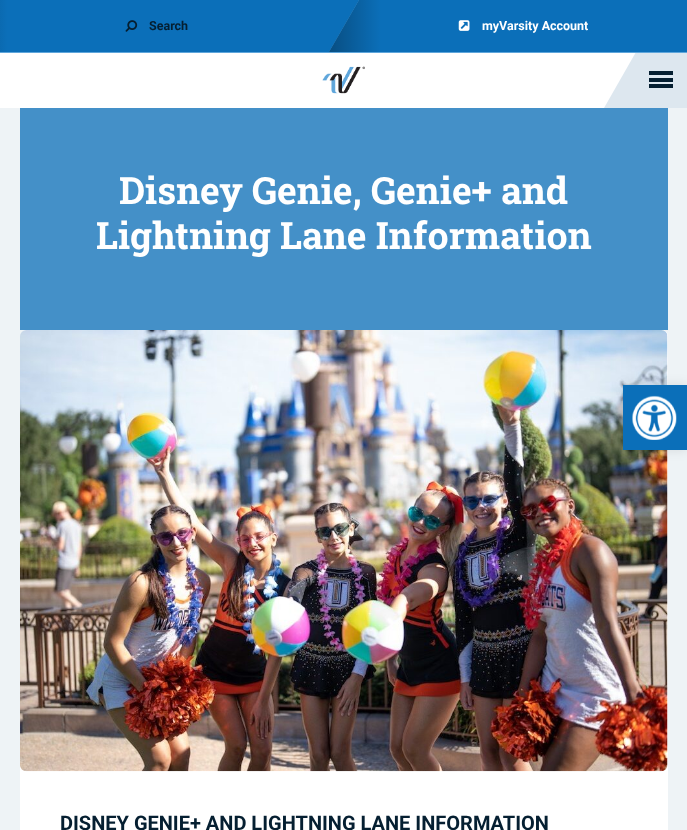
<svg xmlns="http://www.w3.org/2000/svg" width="687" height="830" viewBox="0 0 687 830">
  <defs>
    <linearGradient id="g1" gradientUnits="userSpaceOnUse" x1="-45" y1="26" x2="7.5" y2="26"><stop offset="0" stop-color="#084e82"/><stop offset="1" stop-color="#0b6fb9"/></linearGradient>
    <linearGradient id="g2" gradientUnits="userSpaceOnUse" x1="329" y1="26" x2="381" y2="26"><stop offset="0" stop-color="#000" stop-opacity="0.3"/><stop offset="1" stop-color="#000" stop-opacity="0"/></linearGradient>
  </defs>
  <rect width="100%" height="100%" fill="#eef3f6"/>
  <path d="M0 53h636v55H0z" fill="#fff"/>
  <path d="M636 52H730L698 108H604Z" fill="#dde7ef"/>
  <path d="M0 0h687v53H0z" fill="#5fa6db"/>
  <path d="M-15 0H359L329 52H-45Z" fill="#0b6fb9"/>
  <path d="M-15 0L-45 52H8V0Z" fill="url(#g1)"/>
  <image x="125" y="20" width="13" height="12" href="img/1.png"/>
  <path d="M359 0H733L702 52H329Z" fill="#0b6fb9"/>
  <path d="M359 0L329 52H381V0Z" fill="url(#g2)"/>
  <image x="458" y="20" width="12" height="11" href="img/2.png"/>
  <image x="322" y="66" width="43" height="28" href="img/3.png"/>
  <path d="M649 71h24v4H649z" fill="#051f31"/>
  <path d="M649 78h24v4H649z" fill="#051f31"/>
  <path d="M649 84h24v4H649z" fill="#051f31"/>
  <path d="M20 108h648v222H20z" fill="#4490c8"/>
  <rect x="20" y="330" width="648" height="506" rx="6" fill="#fff"/>
  <image x="20" y="330" width="648" height="442" href="img/4.png"/>
  <path d="M623 385h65v65H623z" fill="#0000001a" filter="blur(6px)"/>
  <path d="M623 385h64v65H623z" fill="#0b6fb9"/>
  <image x="632" y="395" width="45" height="45" href="img/5.png"/>
  <text x="149" y="30" font-family="Roboto" font-size="12.5" font-weight="bold" fill="#051f31">Search</text>
  <text x="482" y="30" font-family="Roboto" font-size="12.5" font-weight="bold" fill="#fff">myVarsity Account</text>
  <g font-family="Roboto Slab" font-size="37.5" font-weight="bold" fill="#fff">
    <text x="119" y="204">Disney Genie, Genie+ and</text>
    <text x="96" y="249">Lightning Lane Information</text>
  </g>
  <text x="60" y="830" font-family="Roboto" font-size="20" font-weight="bold" fill="#051f31">DISNEY GENIE+ AND LIGHTNING LANE INFORMATION</text>
</svg>
